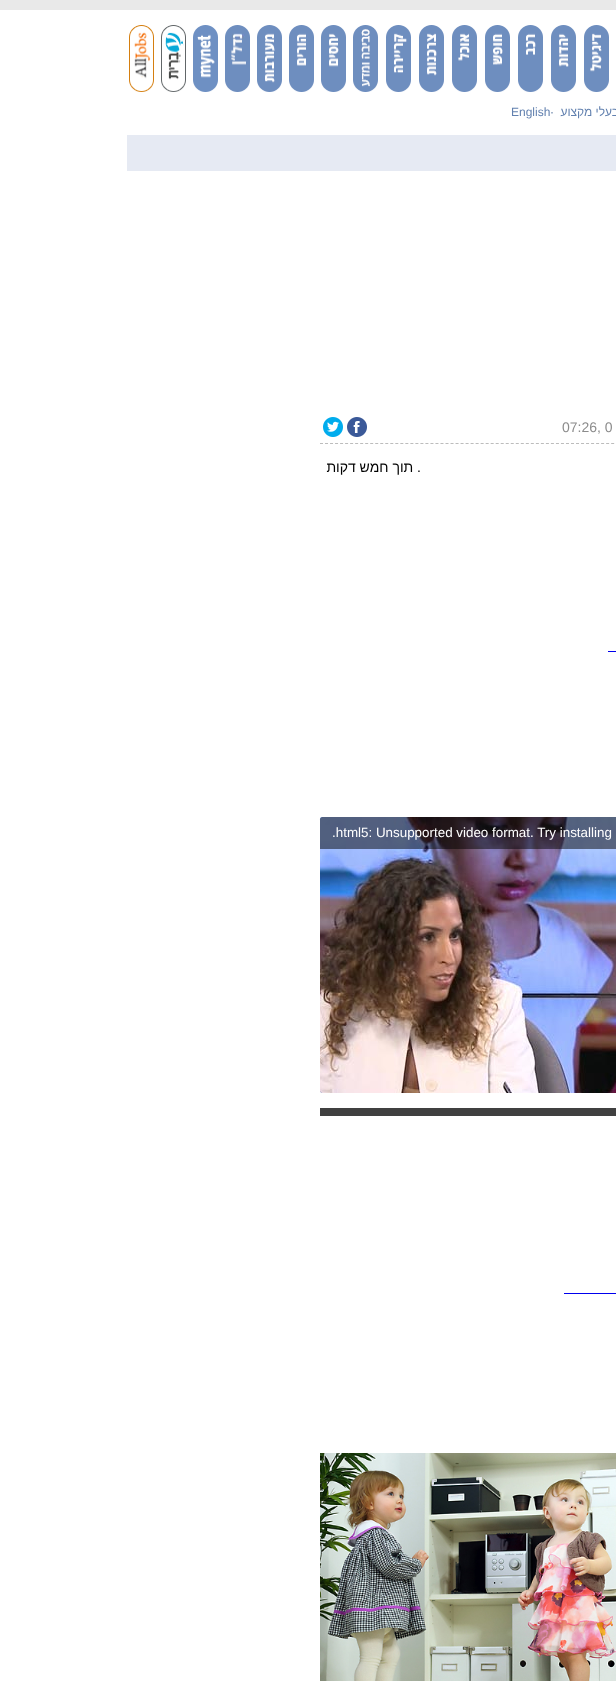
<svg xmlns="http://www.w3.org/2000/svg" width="616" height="1681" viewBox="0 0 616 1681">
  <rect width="100%" height="100%" fill="#fff"/>
  <path d="M0 0h616v10H0z" fill="#e9e9e9"/>
  <image x="129" y="25" width="25" height="67" href="img/1.png"/>
  <image x="161" y="25" width="25" height="67" href="img/2.png"/>
  <image x="193" y="25" width="25" height="67" href="img/3.png"/>
  <image x="225" y="25" width="25" height="67" href="img/4.png"/>
  <image x="257" y="25" width="25" height="67" href="img/5.png"/>
  <image x="289" y="25" width="25" height="67" href="img/6.png"/>
  <image x="321" y="25" width="25" height="67" href="img/7.png"/>
  <image x="353" y="25" width="25" height="67" href="img/8.png"/>
  <image x="386" y="25" width="25" height="67" href="img/9.png"/>
  <image x="419" y="25" width="25" height="67" href="img/10.png"/>
  <image x="452" y="25" width="25" height="67" href="img/11.png"/>
  <image x="485" y="25" width="25" height="67" href="img/12.png"/>
  <image x="518" y="25" width="25" height="67" href="img/13.png"/>
  <image x="551" y="25" width="25" height="67" href="img/14.png"/>
  <image x="584" y="25" width="25" height="67" href="img/15.png"/>
  <path d="M127 135h489v36H127z" fill="#e6eaf3"/>
  <image x="323" y="417" width="20" height="20" href="img/16.png"/>
  <image x="347" y="417" width="20" height="20" href="img/17.png"/>
  <path d="M320 443.5H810" fill="none" stroke="#bcbcbc" stroke-dasharray="3 2.02"/>
  <path d="M608 651h8v1H608z" fill="#00e"/>
  <image x="320" y="817" width="3" height="276" href="img/18.png"/>
  <image x="320" y="817" width="296" height="276" href="img/19.png"/>
  <path d="M322.5 817H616.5C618 817 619 818 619 819.5V849H320V819.5C320 818 321 817 322.5 817Z" fill="#00000080"/>
  <path d="M320 1108h296v8H320z" fill="#404040"/>
  <path d="M564 1293h52v1H564z" fill="#00e"/>
  <image x="320" y="1453" width="296" height="228" href="img/20.png"/>
  <text x="511" y="116" font-family="Liberation Sans" font-size="12" fill="#6281af">English</text>
  <text x="550" y="116" font-family="Liberation Sans" font-size="12" fill="#6882a7">·</text>
  <text x="619" y="116" font-family="Liberation Sans" font-size="12" direction="rtl" fill="#6281af">בעלי מקצוע</text>
  <text x="562" y="432" font-family="Liberation Sans" font-size="14" fill="#8c8c8c">07:26, 0</text>
  <text x="421" y="472" font-family="Liberation Sans" font-size="14" direction="rtl" fill="#000">. תוך חמש דקות</text>
  <text x="332" y="837" font-family="Liberation Sans" font-size="13.4" fill="#fff">.html5: Unsupported video format. Try installing</text>
</svg>
